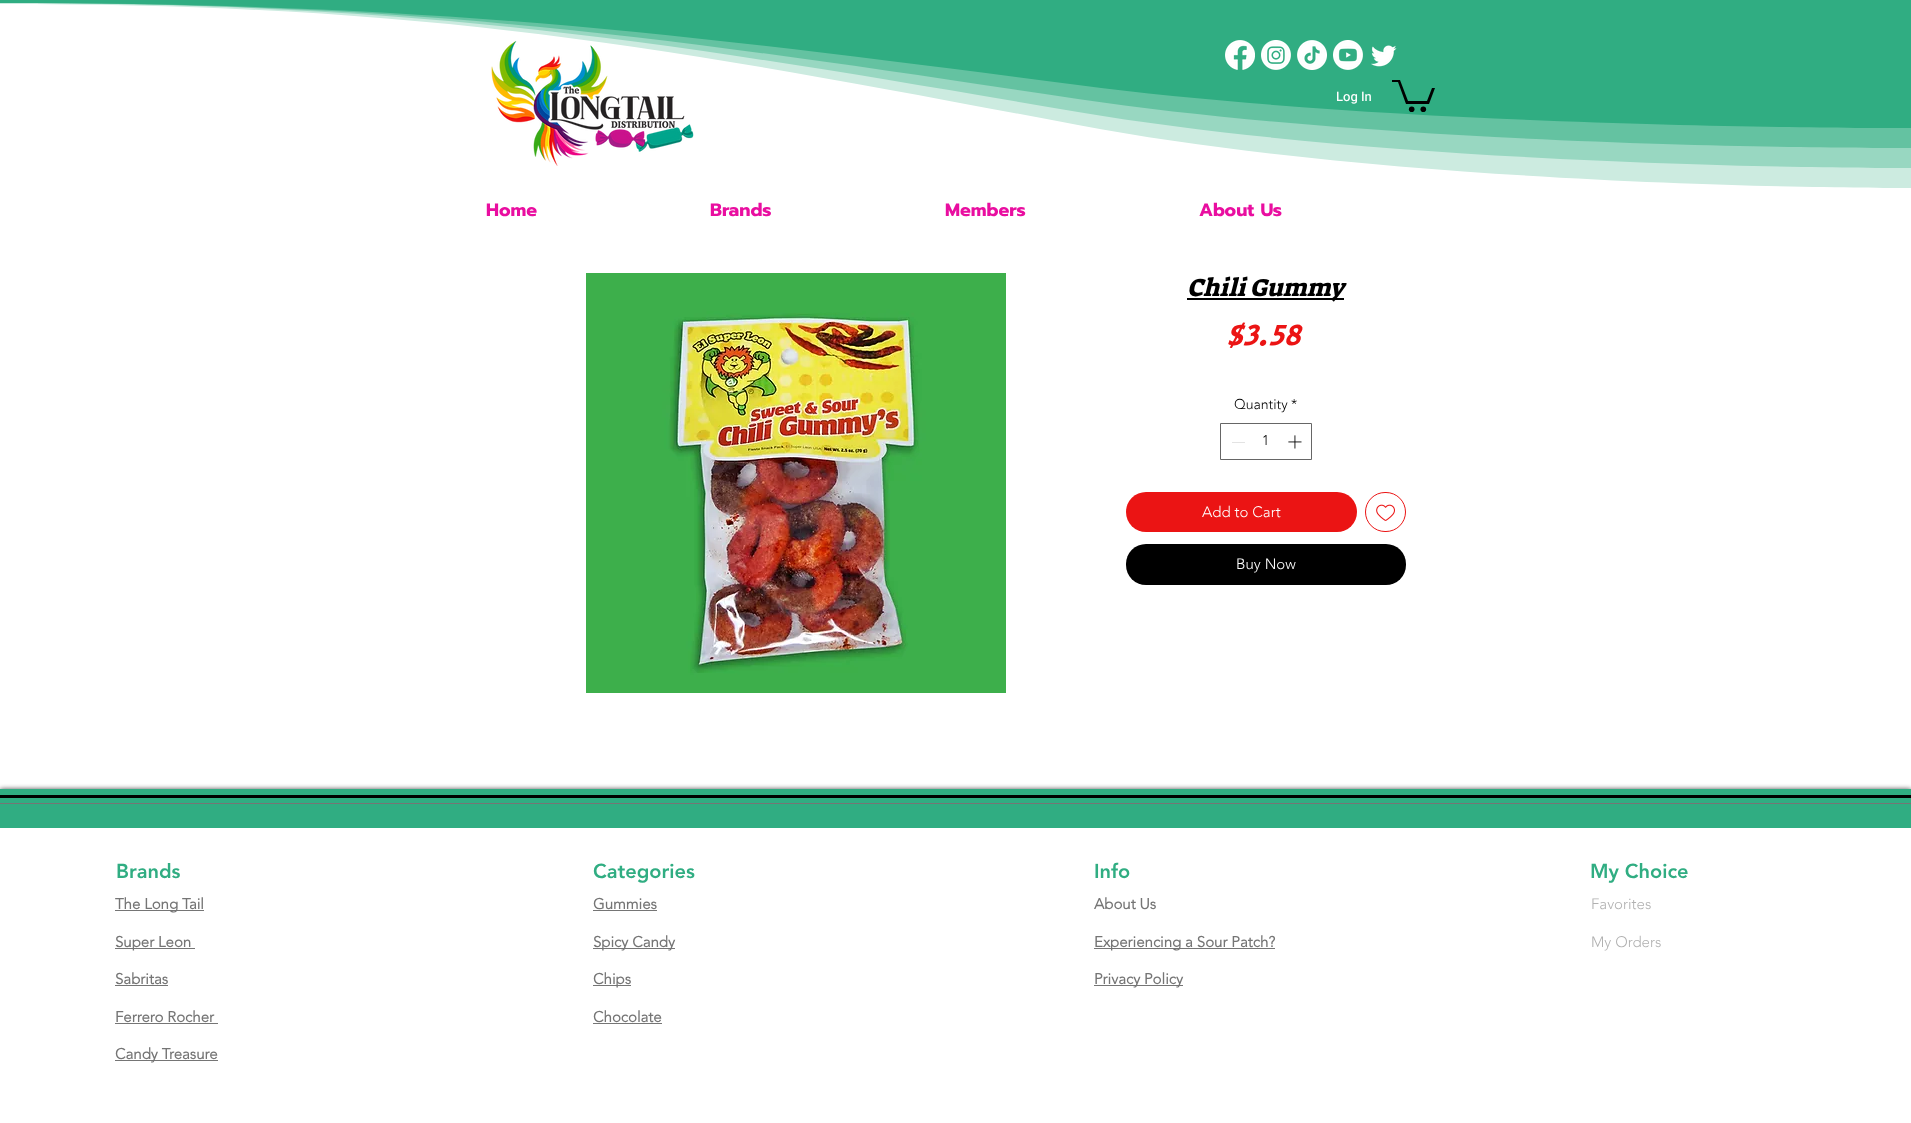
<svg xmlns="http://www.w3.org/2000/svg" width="1911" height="1123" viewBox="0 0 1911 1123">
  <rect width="100%" height="100%" fill="#fff"/>
  <path d="M0 0V4C453 4 688 52 1078 125C1423 190 1911 188 1911 188V0Z" fill="#ccebe0"/>
  <path d="M0 0V3C453 3 688 46 1078 112C1423 170 1911 168 1911 168V0Z" fill="#98d7c1"/>
  <path d="M0 0V3C453 3 688 41 1078 99C1423 150 1911 148 1911 148V0Z" fill="#30ad8280"/>
  <path d="M0 0V3C453 3 688 35 1078 85C1423 130 1911 128 1911 128V0Z" fill="#30ad82"/>
  <image x="491" y="41" width="203" height="125" href="img/1.png"/>
  <image x="1225" y="40" width="30" height="30" href="img/2.png"/>
  <image x="1261" y="40" width="30" height="30" href="img/3.png"/>
  <image x="1297" y="40" width="30" height="30" href="img/4.png"/>
  <image x="1333" y="40" width="30" height="30" href="img/5.png"/>
  <image x="1371" y="45" width="26" height="22" href="img/6.png"/>
  <path d="M1435 88L1429 104H1406L1398 82H1392V80H1400L1408 101H1427L1432 88" fill="#000"/>
  <circle cx="1423.3" cy="109.3" r="2.8" fill="#000"/>
  <circle cx="1411.7" cy="109.3" r="2.8" fill="#000"/>
  <image x="586" y="273" width="420" height="420" href="img/7.png"/>
  <path d="M1187 298h157v2H1187z" fill="#000"/>
  <path d="M1220.5 423.5h91v36H1220.5z" fill="none" stroke="#666"/>
  <path d="M1232 442h13v1H1232z" fill="#e3e3e3"/>
  <image x="1288" y="435" width="14" height="14" href="img/8.png"/>
  <rect x="1126" y="492" width="231" height="40" rx="20" fill="#eb1414"/>
  <rect x="1365.5" y="492.5" width="40" height="39" rx="19.5" fill="none" stroke="#eb1414"/>
  <image x="1376" y="504" width="19" height="17" href="img/9.png"/>
  <rect x="1126" y="544" width="280" height="41" rx="20" fill="#000"/>
  <path d="M0 789h1911v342H0z" fill="#000000b3" filter="blur(2.5px)"/>
  <path d="M0 789h1911v39H0z" fill="#30ad82"/>
  <path d="M0 795h1911v3H0z" fill="#000"/>
  <path d="M0 803h1911v1H0z" fill="#757575"/>
  <path d="M0 828h1911v295H0z" fill="#fff"/>
  <path d="M115 910h89v1H115z" fill="#757575"/>
  <path d="M115 948h80v1H115z" fill="#757575"/>
  <path d="M115 985h53v1H115z" fill="#757575"/>
  <path d="M115 1023h103v1H115z" fill="#757575"/>
  <path d="M115 1060h103v1H115z" fill="#757575"/>
  <path d="M593 910h64v1H593z" fill="#757575"/>
  <path d="M593 948h82v1H593z" fill="#757575"/>
  <path d="M593 985h38v1H593z" fill="#757575"/>
  <path d="M593 1023h69v1H593z" fill="#757575"/>
  <path d="M1094 948h181v1H1094z" fill="#757575"/>
  <path d="M1094 985h89v1H1094z" fill="#757575"/>
  <text x="1336" y="101" font-family="Heebo" font-size="13" font-weight="500" fill="#fff">Log In</text>
  <g font-family="Prompt" font-size="18" font-weight="bold" fill="#e90ea0">
    <text x="486" y="216">Home</text>
    <text x="710" y="216">Brands</text>
    <text x="945" y="216">Members</text>
    <text x="1199" y="216">About Us</text>
  </g>
  <text x="1187" y="296" font-family="Suez One" font-size="25" font-style="italic" fill="#000">Chili Gummy</text>
  <text x="1226" y="345" font-family="Secular One" font-size="30" font-style="italic" fill="#eb1414">$3.58</text>
  <g font-family="'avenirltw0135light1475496'" font-size="14" font-weight="300" fill="#000">
    <text x="1234" y="409">Quantity</text>
    <text x="1291" y="409">*</text>
    <text x="1262" y="445">1</text>
  </g>
  <g font-family="'avenirltw0135light1475496'" font-size="15" font-weight="300" fill="#fff">
    <text x="1202" y="517">Add to Cart</text>
    <text x="1236" y="569">Buy Now</text>
  </g>
  <text x="116" y="878" font-family="'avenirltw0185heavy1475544'" font-size="20" font-weight="900" fill="#30ad82">Brands</text>
  <g font-family="'avenirltw0135light1475496'" font-size="15" font-weight="bold" fill="#757575">
    <text x="115" y="909">The Long Tail</text>
    <text x="115" y="947">Super Leon</text>
    <text x="115" y="984">Sabritas</text>
    <text x="115" y="1022">Ferrero Rocher</text>
    <text x="115" y="1059">Candy Treasure</text>
  </g>
  <text x="593" y="878" font-family="'avenirltw0185heavy1475544'" font-size="20" font-weight="900" fill="#30ad82">Categories</text>
  <g font-family="'avenirltw0135light1475496'" font-size="15" font-weight="bold" fill="#757575">
    <text x="593" y="909">Gummies</text>
    <text x="593" y="947">Spicy Candy</text>
    <text x="593" y="984">Chips</text>
    <text x="593" y="1022">Chocolate</text>
  </g>
  <text x="1094" y="878" font-family="'avenirltw0185heavy1475544'" font-size="20" font-weight="900" fill="#30ad82">Info</text>
  <g font-family="'avenirltw0135light1475496'" font-size="15" font-weight="bold" fill="#757575">
    <text x="1094" y="909">About Us</text>
    <text x="1094" y="947">Experiencing a Sour Patch?</text>
    <text x="1094" y="984">Privacy Policy</text>
  </g>
  <text x="1590" y="878" font-family="'avenirltw0185heavy1475544'" font-size="20" font-weight="900" fill="#30ad82">My Choice</text>
  <g font-family="'avenirltw0135light1475496'" font-size="15" font-weight="300" fill="#b1b1b1">
    <text x="1591" y="909">Favorites</text>
    <text x="1591" y="947">My Orders</text>
  </g>
</svg>
